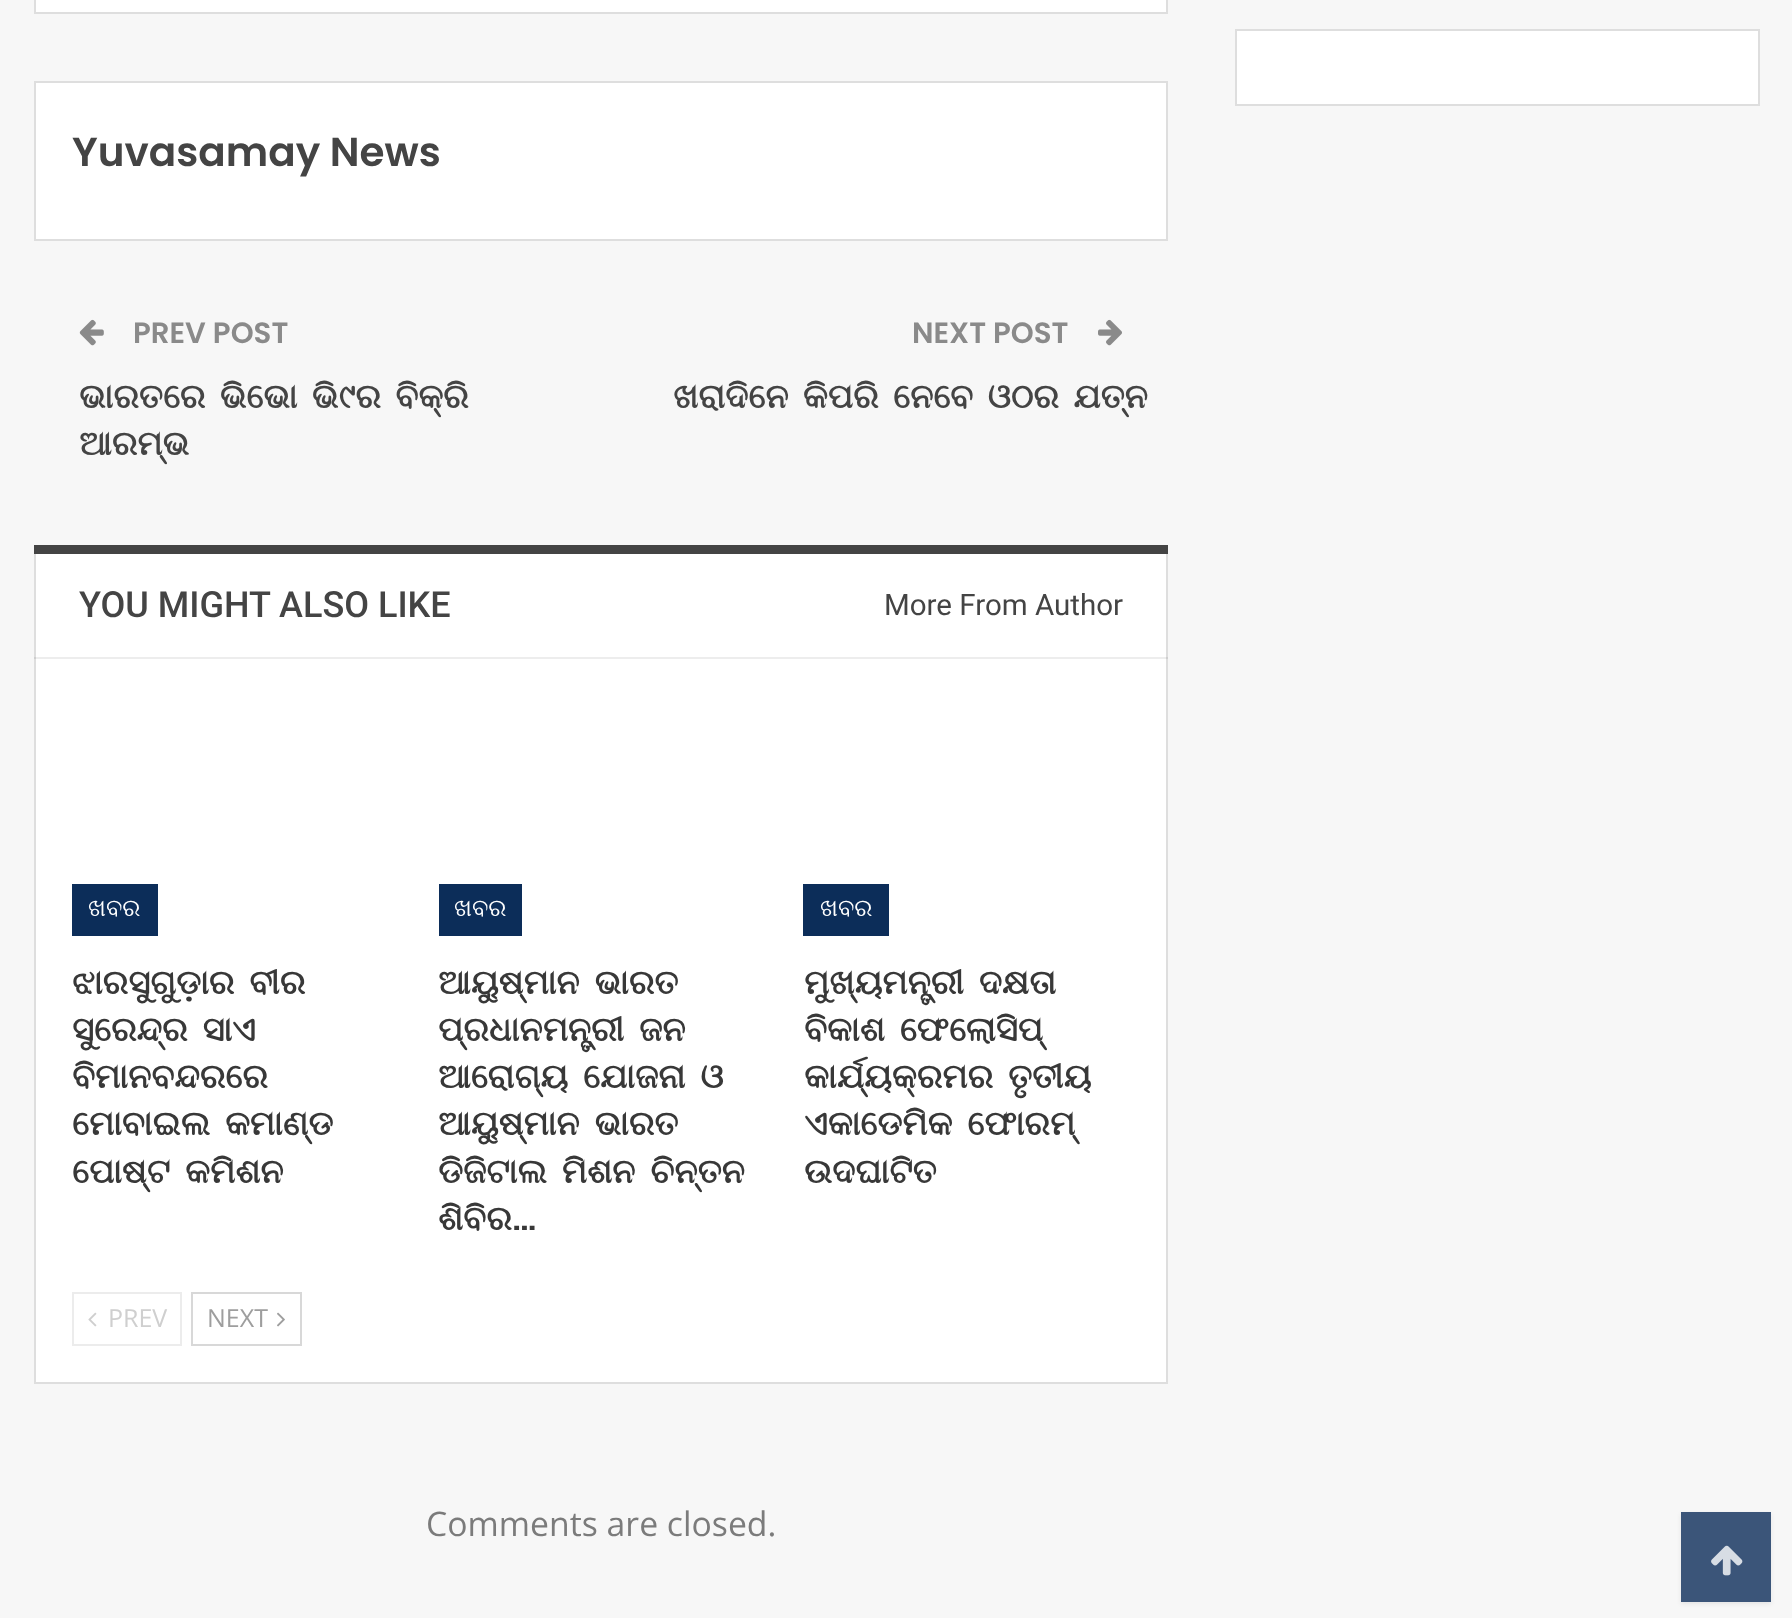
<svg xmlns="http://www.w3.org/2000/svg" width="1792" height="1618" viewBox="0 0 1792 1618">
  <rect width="100%" height="100%" fill="#f7f7f7"/>
  <path d="M1236 30h523v75H1236z" fill="#fff" stroke="#dedede" stroke-width="2"/>
  <path d="M35 -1h1132v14H35z" fill="#fff" stroke="#dedede" stroke-width="2"/>
  <path d="M35 82h1132v158H35z" fill="#fff" stroke="#dedede" stroke-width="2"/>
  <image x="79" y="319" width="25" height="27" href="img/1.png"/>
  <image x="1098" y="319" width="24" height="27" href="img/2.png"/>
  <path d="M36 554h1130v828H36z" fill="#fff"/>
  <path d="M35 546h1132v837H35z" fill="none" stroke="#dedede" stroke-width="2"/>
  <path d="M34 545h1134v9H34z" fill="#444"/>
  <path d="M34 657h1134v2H34z" fill="#00000012"/>
  <path d="M72 884h86v52H72z" fill="#0c2d59"/>
  <path d="M439 884h83v52H439z" fill="#0c2d59"/>
  <path d="M803 884h86v52H803z" fill="#0c2d59"/>
  <path d="M73 1293h108v52H73z" fill="none" stroke="#ececec" stroke-width="2"/>
  <image x="88" y="1312" width="9" height="15" href="img/3.png"/>
  <path d="M192 1293h109v52H192z" fill="none" stroke="#d8d8d8" stroke-width="2"/>
  <image x="277" y="1312" width="8" height="15" href="img/4.png"/>
  <path d="M1681 1514h90v90H1681z" fill="#31313117" filter="blur(2px)"/>
  <path d="M1681 1512h90v90H1681z" fill="#3b5579"/>
  <image x="1711" y="1545" width="32" height="31" href="img/5.png"/>
  <text x="72" y="166" font-family="Poppins" font-size="40.5" font-weight="600" fill="#444">Yuvasamay News</text>
  <text x="133" y="343" font-family="Poppins" font-size="29.25" font-weight="600" fill="#8a8a8a">PREV POST</text>
  <g font-family="FreeSerif" font-size="33.75" font-weight="bold" fill="#444">
    <text x="79" y="408" word-spacing="-2.5">ଭାରତରେ ଭିଭୋ ଭି୯ର ବିକ୍ରି</text>
    <text x="79" y="455">ଆରମ୍ଭ</text>
  </g>
  <text x="912" y="343" font-family="Poppins" font-size="29.25" font-weight="600" fill="#8a8a8a">NEXT POST</text>
  <text x="673" y="408" word-spacing="-2.5" font-family="FreeSerif" font-size="33.75" font-weight="bold" fill="#444">ଖରାଦିନେ କିପରି ନେବେ ଓଠର ଯତ୍ନ</text>
  <text x="79" y="617" font-family="Roboto" font-size="36" font-weight="500" fill="#444">YOU MIGHT ALSO LIKE</text>
  <text x="884" y="615" font-family="Roboto" font-size="29.5" fill="#444">More From Author</text>
  <text x="88" y="916" font-family="FreeSerif" font-size="24" fill="#fff">ଖବର</text>
  <g font-family="FreeSerif" font-size="33.75" font-weight="bold" fill="#383838">
    <text x="72" y="994" word-spacing="-2">ଝାରସୁଗୁଡ଼ାର ବୀର</text>
    <text x="72" y="1041" word-spacing="-2">ସୁରେନ୍ଦ୍ର ସାଏ</text>
    <text x="72" y="1088">ବିମାନବନ୍ଦରରେ</text>
    <text x="72" y="1135" word-spacing="-2">ମୋବାଇଲ କମାଣ୍ଡ</text>
    <text x="72" y="1183" word-spacing="-2">ପୋଷ୍ଟ କମିଶନ</text>
  </g>
  <text x="454" y="916" font-family="FreeSerif" font-size="24" fill="#fff">ଖବର</text>
  <g font-family="FreeSerif" font-size="33.75" font-weight="bold" fill="#383838">
    <text x="438" y="994" word-spacing="-2">ଆୟୁଷ୍ମାନ ଭାରତ</text>
    <text x="438" y="1041" word-spacing="-2">ପ୍ରଧାନମନ୍ତ୍ରୀ ଜନ</text>
    <text x="438" y="1088" word-spacing="-2">ଆରୋଗ୍ୟ ଯୋଜନା ଓ</text>
    <text x="438" y="1135" word-spacing="-2">ଆୟୁଷ୍ମାନ ଭାରତ</text>
    <text x="438" y="1183" word-spacing="-2">ଡିଜିଟାଲ ମିଶନ ଚିନ୍ତନ</text>
    <text x="438" y="1230">ଶିବିର</text>
  </g>
  <text x="512" y="1230" font-family="Roboto Slab" font-size="33.75" font-weight="bold" fill="#383838">…</text>
  <text x="820" y="916" font-family="FreeSerif" font-size="24" fill="#fff">ଖବର</text>
  <g font-family="FreeSerif" font-size="33.75" font-weight="bold" fill="#383838">
    <text x="804" y="994" word-spacing="-2">ମୁଖ୍ୟମନ୍ତ୍ରୀ ଦକ୍ଷତା</text>
    <text x="804" y="1041" word-spacing="-2">ବିକାଶ ଫେଲୋସିପ୍</text>
    <text x="804" y="1088" word-spacing="-2">କାର୍ଯ୍ୟକ୍ରମର ତୃତୀୟ</text>
    <text x="804" y="1135" word-spacing="-2">ଏକାଡେମିକ ଫୋରମ୍</text>
    <text x="804" y="1183">ଉଦଘାଟିତ</text>
  </g>
  <text x="108" y="1327" font-family="Open Sans" font-size="25" fill="#cfcfcf">PREV</text>
  <text x="207" y="1327" font-family="Open Sans" font-size="25" fill="#9e9e9e">NEXT</text>
  <text x="426" y="1536" font-family="Open Sans" font-size="33.75" fill="#7b7b7b">Comments are closed.</text>
</svg>
